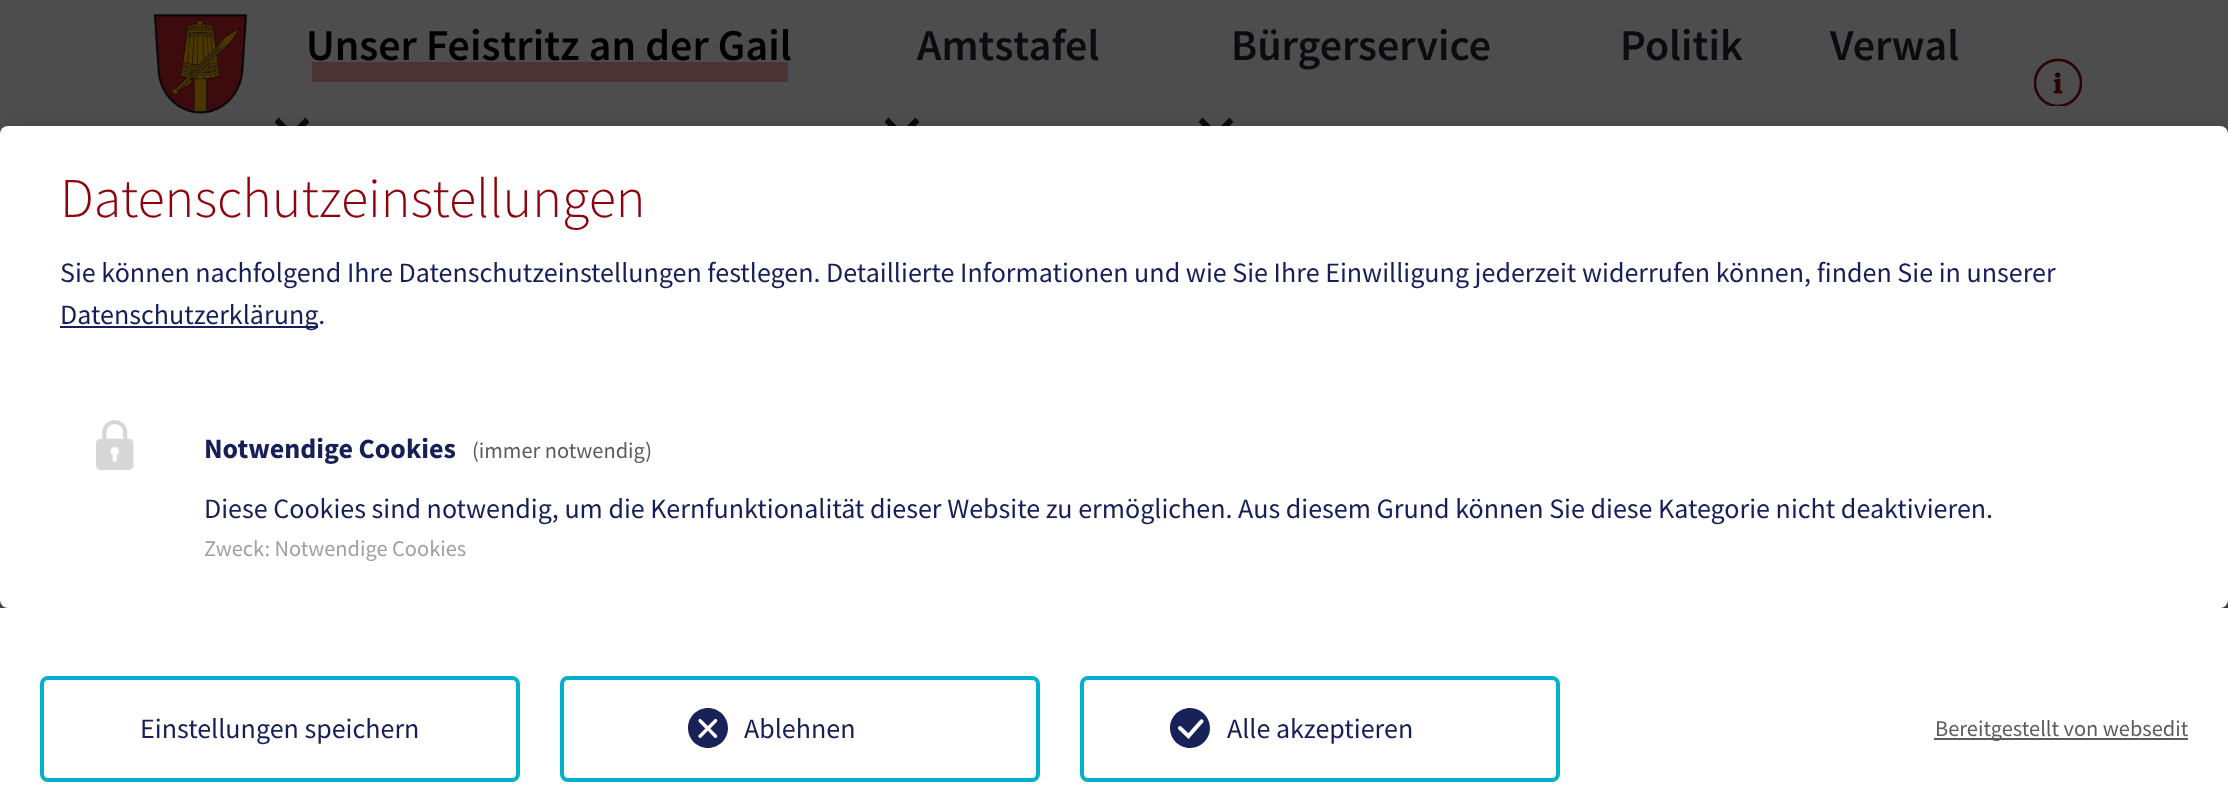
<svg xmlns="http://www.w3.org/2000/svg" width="2228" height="808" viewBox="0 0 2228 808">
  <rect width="100%" height="100%" fill="#4d4d4d"/>
  <image x="154" y="14" width="94" height="100" href="img/1.png"/>
  <path d="M312 62h476v20H312z" fill="#4d3434"/>
  <path d="M292 139.5L274.5 122L278.5 117.5L296 135.5Z" fill="#0b0c10"/>
  <path d="M292 139.5L287.5 135.5L305.5 117.5L309.5 122Z" fill="#0b0c10"/>
  <path d="M902 139.5L884.5 122L888.5 117.5L906 135.5Z" fill="#0b0c10"/>
  <path d="M902 139.5L897.5 135.5L915.5 117.5L919.5 122Z" fill="#0b0c10"/>
  <path d="M1216 139.5L1198.5 122L1202.5 117.5L1220 135.5Z" fill="#0b0c10"/>
  <path d="M1216 139.5L1211.5 135.5L1229.5 117.5L1233.5 122Z" fill="#0b0c10"/>
  <text x="306" y="60" font-family="Source Sans Pro" font-size="44" font-weight="600" fill="#000">Unser Feistritz an der Gail</text>
  <g font-family="Source Sans Pro" font-size="44" font-weight="600" fill="#0b0c10">
    <text x="917" y="60">Amtstafel</text>
    <text x="1231" y="60">Bürgerservice</text>
    <text x="1620" y="60">Politik</text>
    <text x="1830" y="60">Verwal</text>
  </g>
  <path d="M1968 40H2148C2153.5 40 2158 44.5 2158 50V184H1958V50C1958 44.5 1962.5 40 1968 40Z" fill="#4d4d4d"/>
  <image x="2034" y="58" width="48" height="48" href="img/2.png"/>
  <rect x="10" y="136" width="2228" height="482" rx="8" fill="#00000030" filter="blur(10px)"/>
  <rect y="134" width="2228" height="482" rx="8" fill="#00000033" filter="blur(6px)"/>
  <rect y="126" width="2228" height="482" rx="8" fill="#fff"/>
  <text x="60" y="217" font-family="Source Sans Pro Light" font-size="56" font-weight="300" fill="#8d020c">Datenschutzeinstellungen</text>
  <text x="60" y="282" font-family="Source Sans Pro" font-size="28" fill="#161f57">Sie können nachfolgend Ihre Datenschutzeinstellungen festlegen. Detaillierte Informationen und wie Sie Ihre Einwilligung jederzeit widerrufen können, finden Sie in unserer</text>
  <path d="M60 326h258v2H60z" fill="#161f57"/>
  <text x="60" y="324" font-family="Source Sans Pro" font-size="28" fill="#161f57">Datenschutzerklärung.</text>
  <image x="96" y="420" width="38" height="50" href="img/3.png"/>
  <text x="204" y="458" font-family="Source Sans Pro" font-size="28" font-weight="bold" fill="#161f57">Notwendige Cookies</text>
  <text x="472" y="458" font-family="Source Sans Pro" font-size="22.4" fill="#5c5c5c">(immer notwendig)</text>
  <text x="204" y="518" font-family="Source Sans Pro" font-size="28" fill="#161f57">Diese Cookies sind notwendig, um die Kernfunktionalität dieser Website zu ermöglichen. Aus diesem Grund können Sie diese Kategorie nicht deaktivieren.</text>
  <text x="204" y="556" font-family="Source Sans Pro" font-size="22.4" fill="#a0a0a0">Zweck: Notwendige Cookies</text>
  <path d="M0 608h2228v200H0z" fill="#fff"/>
  <rect x="42" y="678" width="476" height="102" rx="6" fill="none" stroke="#00afcb" stroke-width="4"/>
  <text x="140" y="738" font-family="Source Sans Pro" font-size="28" fill="#161f57">Einstellungen speichern</text>
  <rect x="562" y="678" width="476" height="102" rx="6" fill="none" stroke="#00afcb" stroke-width="4"/>
  <image x="688" y="708" width="40" height="40" href="img/4.png"/>
  <text x="744" y="738" font-family="Source Sans Pro" font-size="28" fill="#161f57">Ablehnen</text>
  <rect x="1082" y="678" width="476" height="102" rx="6" fill="none" stroke="#00afcb" stroke-width="4"/>
  <image x="1170" y="708" width="40" height="40" href="img/5.png"/>
  <text x="1227" y="738" font-family="Source Sans Pro" font-size="28" fill="#161f57">Alle akzeptieren</text>
  <path d="M1934 738h254v2H1934z" fill="#5c5c5c"/>
  <text x="1935" y="736" font-family="Source Sans Pro" font-size="22.4" fill="#5c5c5c">Bereitgestellt von websedit</text>
</svg>
